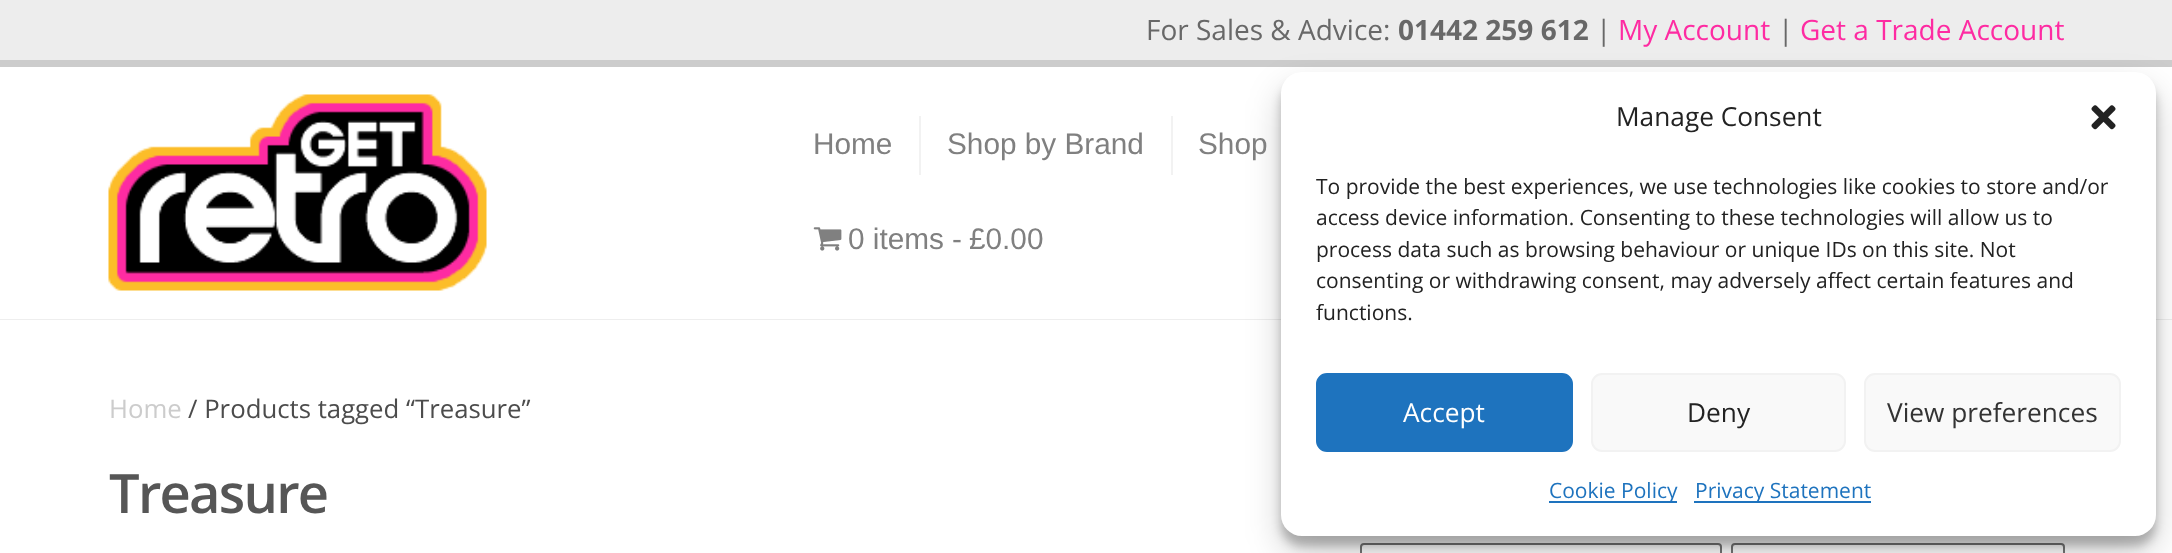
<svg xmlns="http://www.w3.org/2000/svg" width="2172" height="553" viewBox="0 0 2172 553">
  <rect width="100%" height="100%" fill="#fff"/>
  <path d="M0 0h2172v60H0z" fill="#ededed"/>
  <path d="M0 60h2172v7H0z" fill="#ccc"/>
  <path d="M0 319h2172v1H0z" fill="#eee"/>
  <image x="108" y="94" width="379" height="197" href="img/1.png"/>
  <path d="M919 116h2v59H919z" fill="#f2f2f2"/>
  <path d="M1171 116h2v59H1171z" fill="#f2f2f2"/>
  <image x="813" y="227" width="29" height="24" href="img/2.png"/>
  <rect x="1361" y="544" width="360" height="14" rx="3" fill="none" stroke="#767676" stroke-width="2"/>
  <rect x="1732" y="544" width="332" height="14" rx="3" fill="none" stroke="#767676" stroke-width="2"/>
  <rect x="1281" y="82" width="875" height="464" rx="21" fill="#0000003b" filter="blur(5px)"/>
  <rect x="1281" y="89" width="875" height="464" rx="21" fill="#00000030" filter="blur(17.5px)"/>
  <rect x="1281" y="72" width="875" height="464" rx="21" fill="#fff"/>
  <image x="2091" y="105" width="25" height="25" href="img/3.png"/>
  <rect x="1317" y="374" width="255" height="77" rx="10" fill="#1e73be" stroke="#1e73be" stroke-width="2"/>
  <rect x="1592" y="374" width="253" height="77" rx="10" fill="#f9f9f9" stroke="#f2f2f2" stroke-width="2"/>
  <rect x="1865" y="374" width="255" height="77" rx="10" fill="#f9f9f9" stroke="#f2f2f2" stroke-width="2"/>
  <path d="M1549 501h128v2H1549z" fill="#1e73be"/>
  <path d="M1694 501h177v2H1694z" fill="#1e73be"/>
  <text x="1146" y="40" font-family="Open Sans" font-size="28" fill="#686868">For Sales &amp; Advice:</text>
  <text x="1398" y="40" font-family="Open Sans" font-size="28" font-weight="bold" fill="#686868">01442 259 612</text>
  <text x="1596" y="40" font-family="Open Sans" font-size="28" fill="#686868">|</text>
  <text x="1618" y="40" font-family="Open Sans" font-size="28" fill="#fe2ba2">My Account</text>
  <text x="1778" y="40" font-family="Open Sans" font-size="28" fill="#686868">|</text>
  <text x="1800" y="40" font-family="Open Sans" font-size="28" fill="#fe2ba2">Get a Trade Account</text>
  <g font-family="Liberation Sans" font-size="29.75" fill="#808080">
    <text x="813" y="154">Home</text>
    <text x="947" y="154">Shop by Brand</text>
    <text x="1198" y="154">Shop</text>
    <text x="848" y="249">0 items</text>
    <text x="952" y="249">-</text>
    <text x="969" y="249">£0.00</text>
  </g>
  <text x="109" y="418" font-family="Open Sans" font-size="25.75" fill="#ccc">Home</text>
  <text x="188" y="418" font-family="Open Sans" font-size="25.75" fill="#4c4c4c">/ Products tagged “Treasure”</text>
  <text x="109" y="513" font-family="Open Sans" font-size="54.25" font-weight="600" letter-spacing="-1.75" fill="#565656">Treasure</text>
  <text x="1616" y="126" font-family="Open Sans" font-size="26.25" fill="#222">Manage Consent</text>
  <g font-family="Open Sans" font-size="21" fill="#222">
    <text x="1316" y="194">To provide the best experiences, we use technologies like cookies to store and/or</text>
    <text x="1316" y="225">access device information. Consenting to these technologies will allow us to</text>
    <text x="1316" y="257">process data such as browsing behaviour or unique IDs on this site. Not</text>
    <text x="1316" y="288">consenting or withdrawing consent, may adversely affect certain features and</text>
    <text x="1316" y="320">functions.</text>
  </g>
  <text x="1403" y="422" font-family="Open Sans" font-size="26.25" fill="#fff">Accept</text>
  <text x="1687" y="422" font-family="Open Sans" font-size="26.25" fill="#222">Deny</text>
  <text x="1887" y="422" font-family="Open Sans" font-size="26.25" fill="#333">View preferences</text>
  <g font-family="Open Sans" font-size="21" fill="#1e73be">
    <text x="1549" y="498">Cookie Policy</text>
    <text x="1695" y="498">Privacy Statement</text>
  </g>
</svg>
